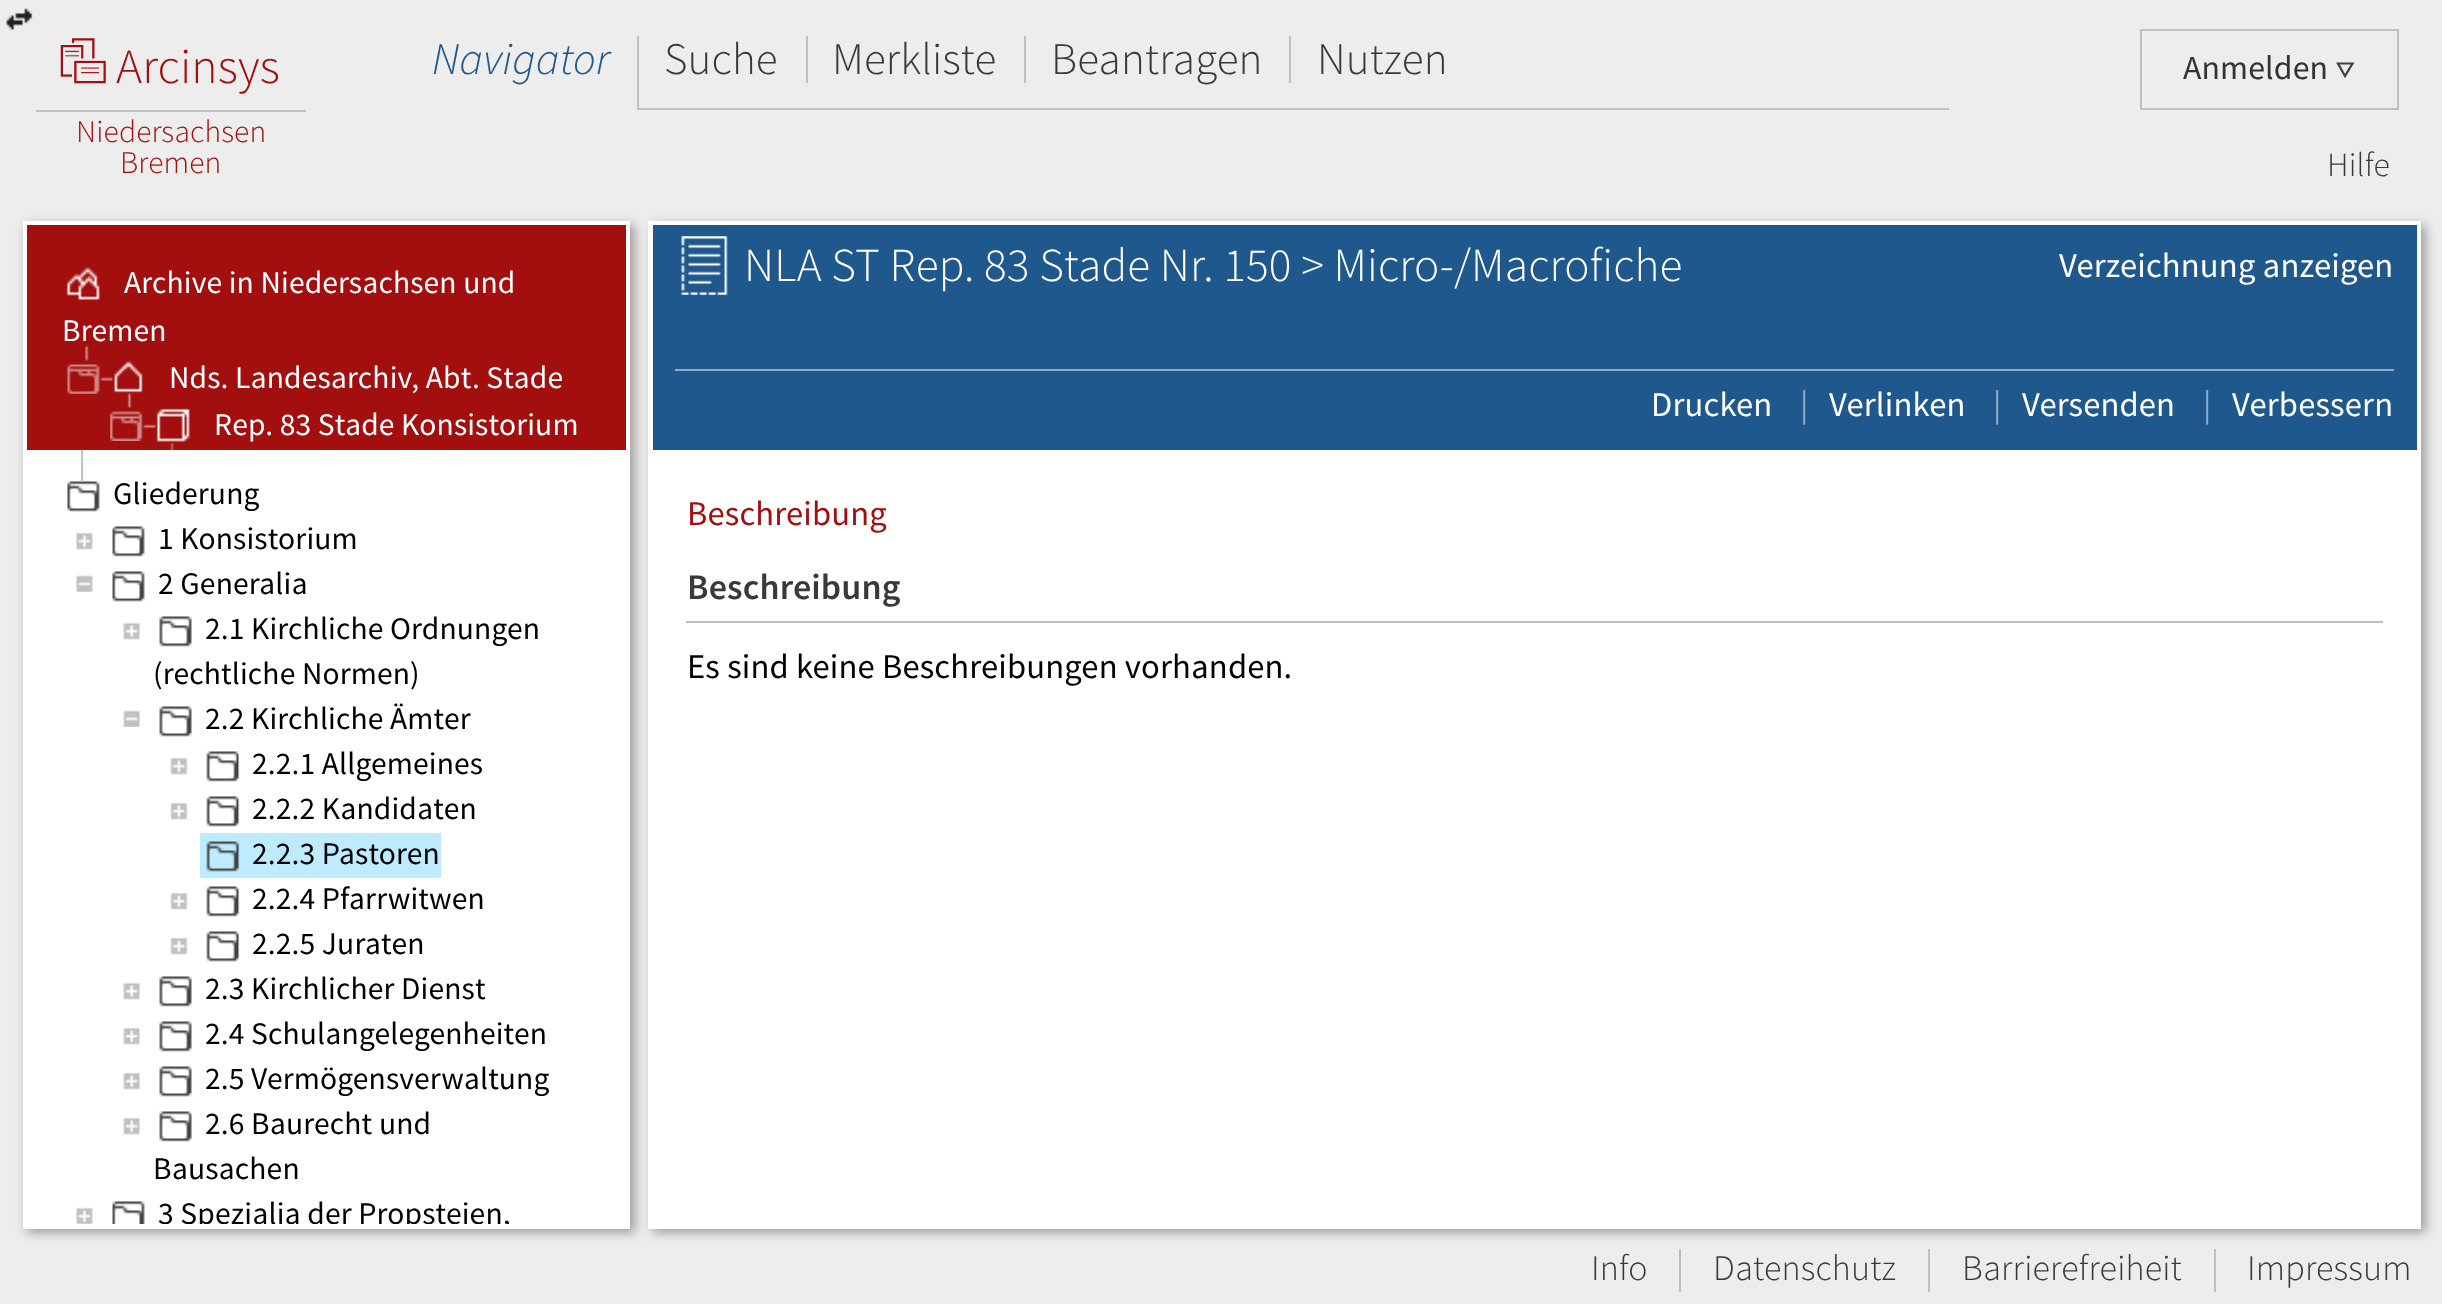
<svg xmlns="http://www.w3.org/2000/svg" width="2442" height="1304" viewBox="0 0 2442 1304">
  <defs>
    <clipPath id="clip1"><path d="M27 450h599v774H27z"/></clipPath>
  </defs>
  <rect width="100%" height="100%" fill="#ededed"/>
  <image x="6" y="8" width="27" height="22" href="img/1.png"/>
  <image x="60" y="38" width="46" height="46" href="img/2.png"/>
  <path d="M36 110h270v2H36z" fill="#c0c0c0"/>
  <path d="M637 108h1312v2H637z" fill="#c0c0c0"/>
  <path d="M637 36h2v72H637z" fill="#c0c0c0"/>
  <path d="M806 36h2v47H806z" fill="#c0c0c0"/>
  <path d="M1024 36h2v47H1024z" fill="#c0c0c0"/>
  <path d="M1289 36h2v47H1289z" fill="#c0c0c0"/>
  <path d="M2141 30h257v79H2141z" fill="none" stroke="#c0c0c0" stroke-width="2"/>
  <path d="M2338 63.5H2352.5L2345 76Z" fill="none" stroke="#424242" stroke-width="2.2"/>
  <path d="M27 225h608v1008H27z" fill="#00000054" filter="blur(5.5px)"/>
  <path d="M23 221h607v1008H23z" fill="#fff"/>
  <path d="M27 225h599v225H27z" fill="#a30f0f"/>
  <image x="66" y="267" width="34" height="33" href="img/3.png"/>
  <image x="67" y="346" width="47" height="48" href="img/4.png"/>
  <image x="114" y="361" width="29" height="32" href="img/5.png"/>
  <image x="110" y="393" width="46" height="48" href="img/6.png"/>
  <image x="156" y="408" width="34" height="34" href="img/7.png"/>
  <image x="170" y="443" width="4" height="7" href="img/8.png"/>
  <image x="67" y="481" width="33" height="31" href="img/9.png"/>
  <path d="M81 450h2v32H81z" fill="#c1c1c1"/>
  <image x="76" y="532" width="17" height="18" href="img/10.png"/>
  <image x="112" y="526" width="33" height="31" href="img/11.png"/>
  <image x="76" y="575" width="17" height="17" href="img/12.png"/>
  <image x="112" y="571" width="33" height="31" href="img/13.png"/>
  <image x="123" y="622" width="17" height="18" href="img/14.png"/>
  <image x="159" y="616" width="33" height="31" href="img/15.png"/>
  <image x="123" y="710" width="17" height="17" href="img/16.png"/>
  <image x="159" y="706" width="33" height="31" href="img/15.png"/>
  <image x="170" y="757" width="18" height="18" href="img/17.png"/>
  <image x="206" y="751" width="34" height="31" href="img/18.png"/>
  <image x="170" y="802" width="18" height="18" href="img/17.png"/>
  <image x="206" y="796" width="34" height="31" href="img/18.png"/>
  <path d="M200 833h241v45H200z" fill="#beebff"/>
  <image x="206" y="841" width="34" height="31" href="img/19.png"/>
  <image x="170" y="892" width="18" height="18" href="img/17.png"/>
  <image x="206" y="886" width="34" height="31" href="img/18.png"/>
  <image x="170" y="937" width="18" height="18" href="img/17.png"/>
  <image x="206" y="931" width="34" height="31" href="img/18.png"/>
  <image x="123" y="982" width="17" height="18" href="img/14.png"/>
  <image x="159" y="976" width="33" height="31" href="img/15.png"/>
  <image x="123" y="1027" width="17" height="18" href="img/14.png"/>
  <image x="159" y="1021" width="33" height="31" href="img/15.png"/>
  <image x="123" y="1072" width="17" height="18" href="img/14.png"/>
  <image x="159" y="1066" width="33" height="31" href="img/15.png"/>
  <image x="123" y="1117" width="17" height="18" href="img/14.png"/>
  <image x="159" y="1111" width="33" height="31" href="img/15.png"/>
  <image x="76" y="1207" width="17" height="17" href="img/20.png"/>
  <image x="112" y="1201" width="33" height="23" href="img/21.png"/>
  <path d="M653 225h1773v1008H653z" fill="#00000054" filter="blur(5.5px)"/>
  <path d="M648 221h1773v1008H648z" fill="#fff"/>
  <path d="M653 225h1764v225H653z" fill="#1e588c"/>
  <image x="681" y="236" width="47" height="59" href="img/22.png"/>
  <path d="M675 369h1719v2H675z" fill="#8facc6"/>
  <path d="M686 621h1697v2H686z" fill="#c0c0c0"/>
  <path d="M1679 1249h2v43H1679z" fill="#c0c0c0"/>
  <path d="M1928 1249h2v43H1928z" fill="#c0c0c0"/>
  <path d="M2214 1249h2v43H2214z" fill="#c0c0c0"/>
  <text x="116" y="83" font-family="Source Sans Pro" font-size="49.5" font-weight="300" letter-spacing="0.15" fill="#a30f0f">Arcinsys</text>
  <g font-family="Source Sans Pro" font-size="31.5" font-weight="300" letter-spacing="0.15" fill="#a30f0f">
    <text x="76" y="142">Niedersachsen</text>
    <text x="120" y="173">Bremen</text>
  </g>
  <text x="432" y="74" font-family="Source Sans Pro" font-size="45" font-weight="300" font-style="italic" letter-spacing="0.15" fill="#1e588c">Navigator</text>
  <g font-family="Source Sans Pro" font-size="45" font-weight="300" letter-spacing="0.15" fill="#393939">
    <text x="664" y="74">Suche</text>
    <text x="832" y="74">Merkliste</text>
    <text x="1051" y="74">Beantragen</text>
    <text x="1317" y="74">Nutzen</text>
  </g>
  <text x="2183" y="79" font-family="Source Sans Pro" font-size="33.75" letter-spacing="0.15" fill="#333">Anmelden</text>
  <text x="2327" y="176" font-family="Source Sans Pro" font-size="33.75" font-weight="300" letter-spacing="0.15" fill="#393939">Hilfe</text>
  <g font-family="Source Sans Pro" font-size="31.5" letter-spacing="0.15" fill="#fff">
    <text x="124" y="293">Archive in Niedersachsen und</text>
    <text x="62" y="341">Bremen</text>
    <text x="169" y="388">Nds. Landesarchiv, Abt. Stade</text>
    <text x="214" y="435">Rep. 83 Stade Konsistorium</text>
  </g>
  <g font-family="Source Sans Pro" font-size="31.5" letter-spacing="0.15" fill="#000">
    <text x="113" y="504">Gliederung</text>
    <text x="158" y="549">1 Konsistorium</text>
    <text x="158" y="594">2 Generalia</text>
    <text x="205" y="639">2.1 Kirchliche Ordnungen</text>
    <text x="153" y="684">(rechtliche Normen)</text>
    <text x="205" y="729">2.2 Kirchliche Ämter</text>
    <text x="252" y="774">2.2.1 Allgemeines</text>
    <text x="252" y="819">2.2.2 Kandidaten</text>
    <text x="252" y="864">2.2.3 Pastoren</text>
    <text x="252" y="909">2.2.4 Pfarrwitwen</text>
    <text x="252" y="954">2.2.5 Juraten</text>
    <text x="205" y="999">2.3 Kirchlicher Dienst</text>
    <text x="205" y="1044">2.4 Schulangelegenheiten</text>
    <text x="205" y="1089">2.5 Vermögensverwaltung</text>
    <text x="205" y="1134">2.6 Baurecht und</text>
    <text x="153" y="1179">Bausachen</text>
  </g>
  <g clip-path="url(#clip1)">
    <text x="158" y="1224" font-family="Source Sans Pro" font-size="31.5" letter-spacing="0.15" fill="#000">3 Spezialia der Propsteien,</text>
  </g>
  <text x="744" y="281" font-family="Source Sans Pro" font-size="47.25" font-weight="300" letter-spacing="0.15" fill="#fff">NLA ST Rep. 83 Stade Nr. 150 &gt; Micro-/Macrofiche</text>
  <g font-family="Source Sans Pro" font-size="34.6" letter-spacing="0.15" fill="#fff">
    <text x="2059" y="277">Verzeichnung anzeigen</text>
    <text x="1651" y="416">Drucken</text>
  </g>
  <text x="1800" y="416" font-family="Source Sans Pro" font-size="34.6" letter-spacing="0.15" fill="#8facc6">|</text>
  <text x="1829" y="416" font-family="Source Sans Pro" font-size="34.6" letter-spacing="0.15" fill="#fff">Verlinken</text>
  <text x="1993" y="416" font-family="Source Sans Pro" font-size="34.6" letter-spacing="0.15" fill="#8facc6">|</text>
  <text x="2022" y="416" font-family="Source Sans Pro" font-size="34.6" letter-spacing="0.15" fill="#fff">Versenden</text>
  <text x="2203" y="416" font-family="Source Sans Pro" font-size="34.6" letter-spacing="0.15" fill="#8facc6">|</text>
  <text x="2232" y="416" font-family="Source Sans Pro" font-size="34.6" letter-spacing="0.15" fill="#fff">Verbessern</text>
  <text x="687" y="525" font-family="Source Sans Pro" font-size="34.6" letter-spacing="0.15" fill="#a30f0f">Beschreibung</text>
  <text x="687" y="599" font-family="Source Sans Pro" font-size="36" font-weight="600" letter-spacing="0.15" fill="#393939">Beschreibung</text>
  <text x="687" y="678" font-family="Source Sans Pro" font-size="34.6" letter-spacing="0.15" fill="#000">Es sind keine Beschreibungen vorhanden.</text>
  <g font-family="Source Sans Pro" font-size="36" font-weight="300" letter-spacing="0.15" fill="#393939">
    <text x="1591" y="1280">Info</text>
    <text x="1713" y="1280">Datenschutz</text>
    <text x="1962" y="1280">Barrierefreiheit</text>
    <text x="2247" y="1280">Impressum</text>
  </g>
</svg>
